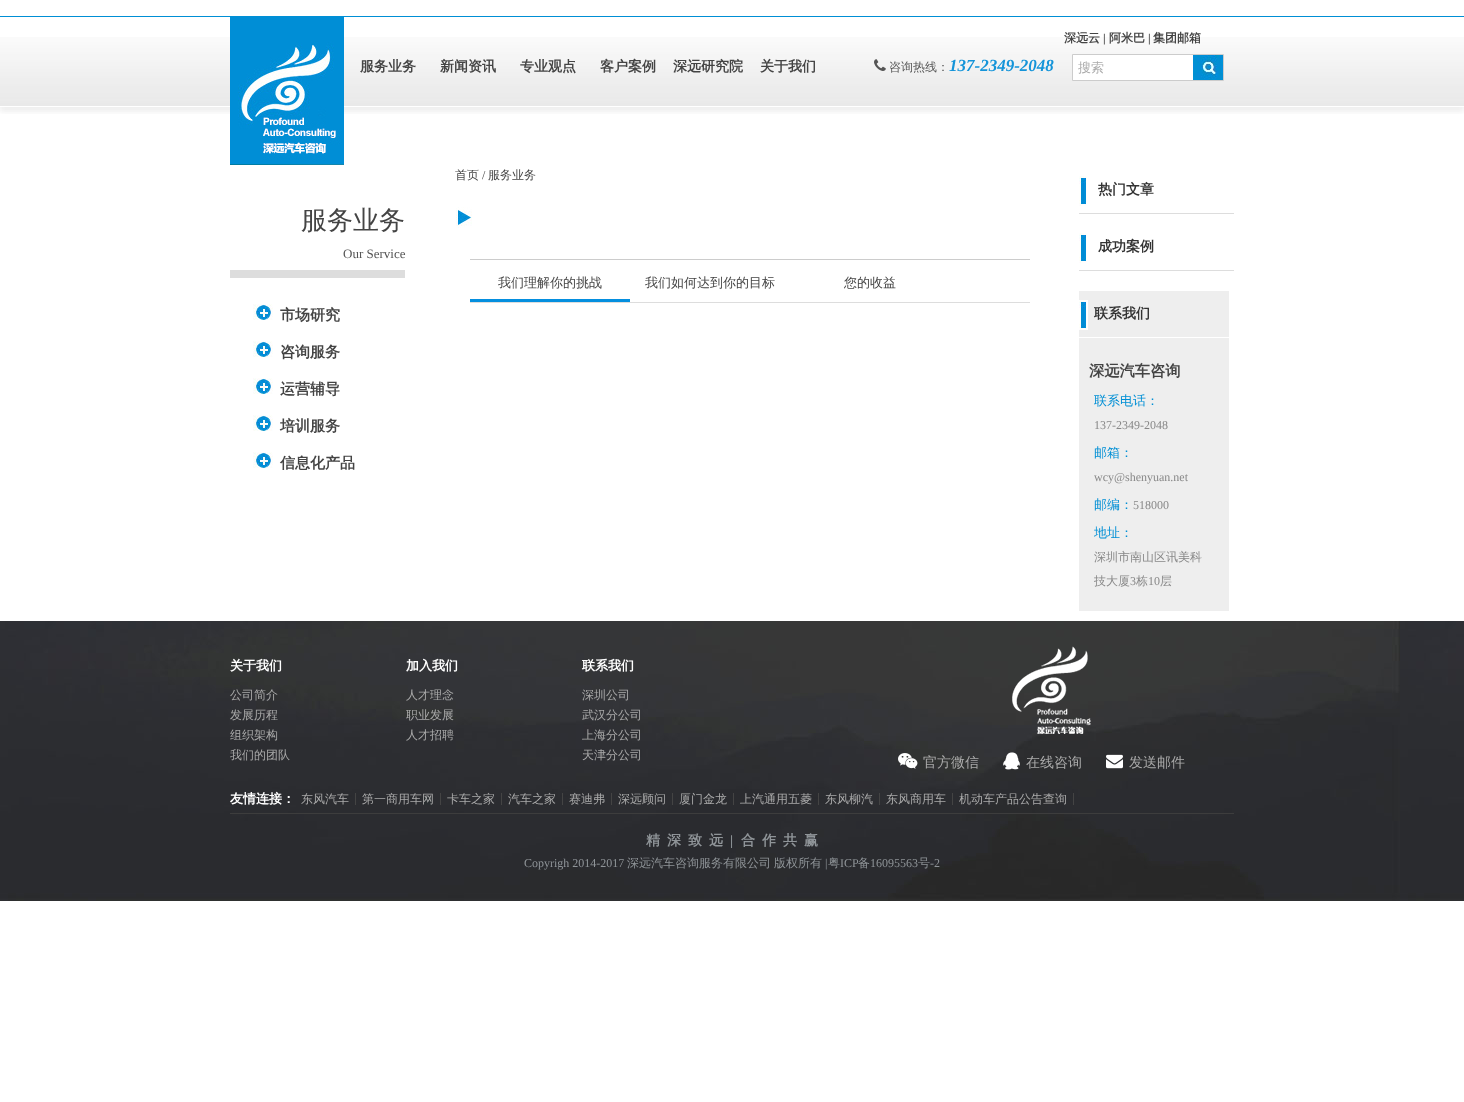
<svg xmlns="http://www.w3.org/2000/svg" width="1464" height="1102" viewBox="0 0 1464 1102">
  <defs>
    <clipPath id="clip1"><path d="M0 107h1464v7H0z"/></clipPath>
  </defs>
  <rect width="100%" height="100%" fill="#fff"/>
  <g clip-path="url(#clip1)">
    <path d="M0 21h1464v91H0z" fill="#32323214" filter="blur(2.5px)"/>
  </g>
  <image x="0" y="37" width="1464" height="69" href="img/1.png"/>
  <path d="M0 16h1464v1H0z" fill="#008fd5"/>
  <image x="230" y="17" width="114" height="148" href="img/2.png"/>
  <image x="874" y="59" width="12" height="12" href="img/3.png"/>
  <path d="M1073 55h120v25H1073z" fill="#fff"/>
  <path d="M1072.5 54.5h151v26H1072.5z" fill="none" stroke="#ccc"/>
  <image x="1193" y="55" width="30" height="25" href="img/4.png"/>
  <path d="M230 270h175v8H230z" fill="#ddd"/>
  <image x="253" y="304" width="20" height="16" href="img/5.png"/>
  <image x="253" y="341" width="20" height="16" href="img/5.png"/>
  <image x="253" y="378" width="20" height="16" href="img/5.png"/>
  <image x="253" y="415" width="20" height="16" href="img/5.png"/>
  <image x="253" y="452" width="20" height="16" href="img/5.png"/>
  <image x="456" y="207" width="16" height="21" href="img/6.png"/>
  <path d="M470 259h560v1H470z" fill="#ccc"/>
  <path d="M470 302h560v1H470z" fill="#ddd"/>
  <path d="M470 299h160v3H470z" fill="#048fdf"/>
  <path d="M1079 213h155v1H1079z" fill="#ddd"/>
  <image x="1079" y="176" width="8" height="30" href="img/7.png"/>
  <path d="M1079 270h155v1H1079z" fill="#ddd"/>
  <image x="1079" y="233" width="8" height="30" href="img/7.png"/>
  <path d="M1079 291h150v320H1079z" fill="#eee"/>
  <path d="M1079 337h150v1H1079z" fill="#fff"/>
  <image x="1079" y="300" width="9" height="30" href="img/8.png"/>
  <image x="0" y="621" width="1464" height="280" href="img/9.png"/>
  <image x="1012" y="646" width="79" height="88" href="img/10.png"/>
  <image x="898" y="753" width="20" height="16" href="img/11.png"/>
  <image x="1003" y="752" width="17" height="18" href="img/12.png"/>
  <image x="1106" y="754" width="17" height="15" href="img/13.png"/>
  <path d="M230 813h1004v1H230z" fill="#3d3d3d"/>
  <path d="M355 793h1v12H355z" fill="#444"/>
  <path d="M440 793h1v12H440z" fill="#444"/>
  <path d="M501 793h1v12H501z" fill="#444"/>
  <path d="M562 793h1v12H562z" fill="#444"/>
  <path d="M611 793h1v12H611z" fill="#444"/>
  <path d="M672 793h1v12H672z" fill="#444"/>
  <path d="M733 793h1v12H733z" fill="#444"/>
  <path d="M818 793h1v12H818z" fill="#444"/>
  <path d="M879 793h1v12H879z" fill="#444"/>
  <path d="M952 793h1v12H952z" fill="#444"/>
  <path d="M1073 793h1v12H1073z" fill="#444"/>
  <g font-family="WenQuanYi Zen Hei" font-size="14" font-weight="bold" fill="#444">
    <text x="360" y="71">服务业务</text>
    <text x="440" y="71">新闻资讯</text>
    <text x="520" y="71">专业观点</text>
    <text x="600" y="71">客户案例</text>
    <text x="673" y="71">深远研究院</text>
    <text x="760" y="71">关于我们</text>
  </g>
  <text x="1064" y="42" font-family="WenQuanYi Zen Hei" font-size="12" font-weight="bold" fill="#444">深远云</text>
  <text x="1103" y="42" font-family="Liberation Serif" font-size="12" font-weight="bold" fill="#444">|</text>
  <text x="1109" y="42" font-family="WenQuanYi Zen Hei" font-size="12" font-weight="bold" fill="#444">阿米巴</text>
  <text x="1148" y="42" font-family="Liberation Serif" font-size="12" font-weight="bold" fill="#444">|</text>
  <text x="1153" y="42" font-family="WenQuanYi Zen Hei" font-size="12" font-weight="bold" fill="#444">集团邮箱</text>
  <text x="889" y="71" font-family="WenQuanYi Zen Hei" font-size="12" font-weight="500" fill="#555">咨询热线：</text>
  <text x="949" y="71" font-family="Liberation Serif" font-size="17" font-weight="bold" font-style="italic" fill="#1494d9">137-2349-2048</text>
  <text x="1078" y="72" font-family="WenQuanYi Zen Hei" font-size="13" font-weight="500" fill="#aaa">搜索</text>
  <text x="301" y="229" font-family="WenQuanYi Zen Hei" font-size="26" font-weight="500" fill="#444">服务业务</text>
  <text x="343" y="258" font-family="Liberation Serif" font-size="13" fill="#555">Our Service</text>
  <g font-family="WenQuanYi Zen Hei" font-size="15" font-weight="bold" fill="#444">
    <text x="280" y="320">市场研究</text>
    <text x="280" y="357">咨询服务</text>
    <text x="280" y="394">运营辅导</text>
    <text x="280" y="431">培训服务</text>
    <text x="280" y="468">信息化产品</text>
  </g>
  <text x="455" y="179" font-family="WenQuanYi Zen Hei" font-size="12" font-weight="500" fill="#444">首页</text>
  <text x="482" y="179" font-family="Liberation Serif" font-size="12" fill="#444">/</text>
  <text x="488" y="179" font-family="WenQuanYi Zen Hei" font-size="12" font-weight="500" fill="#444">服务业务</text>
  <g font-family="WenQuanYi Zen Hei" font-size="13" font-weight="500" fill="#444">
    <text x="498" y="287">我们理解你的挑战</text>
    <text x="645" y="287">我们如何达到你的目标</text>
    <text x="844" y="287">您的收益</text>
  </g>
  <g font-family="WenQuanYi Zen Hei" font-size="14" font-weight="bold" fill="#333">
    <text x="1098" y="194">热门文章</text>
    <text x="1098" y="251">成功案例</text>
    <text x="1094" y="318">联系我们</text>
  </g>
  <text x="1089" y="376" font-family="WenQuanYi Zen Hei" font-size="15.25" font-weight="bold" fill="#444">深远汽车咨询</text>
  <text x="1094" y="405" font-family="WenQuanYi Zen Hei" font-size="13" font-weight="500" fill="#008fd5">联系电话：</text>
  <text x="1094" y="429" font-family="Liberation Serif" font-size="12" fill="#888">137-2349-2048</text>
  <text x="1094" y="457" font-family="WenQuanYi Zen Hei" font-size="13" font-weight="500" fill="#008fd5">邮箱：</text>
  <text x="1094" y="481" font-family="Liberation Serif" font-size="12" fill="#888">wcy@shenyuan.net</text>
  <text x="1094" y="509" font-family="WenQuanYi Zen Hei" font-size="13" font-weight="500" fill="#008fd5">邮编：</text>
  <text x="1133" y="509" font-family="Liberation Serif" font-size="12" fill="#888">518000</text>
  <text x="1094" y="537" font-family="WenQuanYi Zen Hei" font-size="13" font-weight="500" fill="#008fd5">地址：</text>
  <g font-family="WenQuanYi Zen Hei" font-size="12" font-weight="500" fill="#888">
    <text x="1094" y="561">深圳市南山区讯美科</text>
    <text x="1094" y="585">技大厦</text>
  </g>
  <text x="1130" y="585" font-family="Liberation Serif" font-size="12" fill="#888">3</text>
  <text x="1136" y="585" font-family="WenQuanYi Zen Hei" font-size="12" font-weight="500" fill="#888">栋</text>
  <text x="1148" y="585" font-family="Liberation Serif" font-size="12" fill="#888">10</text>
  <text x="1160" y="585" font-family="WenQuanYi Zen Hei" font-size="12" font-weight="500" fill="#888">层</text>
  <text x="230" y="670" font-family="WenQuanYi Zen Hei" font-size="13" font-weight="bold" fill="#fff">关于我们</text>
  <g font-family="WenQuanYi Zen Hei" font-size="12" font-weight="500" fill="#aaa">
    <text x="230" y="699">公司简介</text>
    <text x="230" y="719">发展历程</text>
    <text x="230" y="739">组织架构</text>
    <text x="230" y="759">我们的团队</text>
  </g>
  <text x="406" y="670" font-family="WenQuanYi Zen Hei" font-size="13" font-weight="bold" fill="#fff">加入我们</text>
  <g font-family="WenQuanYi Zen Hei" font-size="12" font-weight="500" fill="#aaa">
    <text x="406" y="699">人才理念</text>
    <text x="406" y="719">职业发展</text>
    <text x="406" y="739">人才招聘</text>
  </g>
  <text x="582" y="670" font-family="WenQuanYi Zen Hei" font-size="13" font-weight="bold" fill="#fff">联系我们</text>
  <g font-family="WenQuanYi Zen Hei" font-size="12" font-weight="500" fill="#aaa">
    <text x="582" y="699">深圳公司</text>
    <text x="582" y="719">武汉分公司</text>
    <text x="582" y="739">上海分公司</text>
    <text x="582" y="759">天津分公司</text>
  </g>
  <g font-family="WenQuanYi Zen Hei" font-size="14" font-weight="500" fill="#aaa">
    <text x="923" y="767">官方微信</text>
    <text x="1026" y="767">在线咨询</text>
    <text x="1129" y="767">发送邮件</text>
  </g>
  <text x="230" y="803" font-family="WenQuanYi Zen Hei" font-size="13" font-weight="bold" fill="#fff">友情连接：</text>
  <g font-family="WenQuanYi Zen Hei" font-size="12" font-weight="500" fill="#aaa">
    <text x="301" y="803">东风汽车</text>
    <text x="362" y="803">第一商用车网</text>
    <text x="447" y="803">卡车之家</text>
    <text x="508" y="803">汽车之家</text>
    <text x="569" y="803">赛迪弗</text>
    <text x="618" y="803">深远顾问</text>
    <text x="679" y="803">厦门金龙</text>
    <text x="740" y="803">上汽通用五菱</text>
    <text x="825" y="803">东风柳汽</text>
    <text x="886" y="803">东风商用车</text>
    <text x="959" y="803">机动车产品公告查询</text>
  </g>
  <g font-family="WenQuanYi Zen Hei" font-size="14" font-weight="bold" fill="#8f9498">
    <text x="646" y="845">精</text>
    <text x="667" y="845">深</text>
    <text x="688" y="845">致</text>
    <text x="709" y="845">远</text>
  </g>
  <text x="730" y="845" font-family="Liberation Serif" font-size="14" font-weight="bold" fill="#8f9498">|</text>
  <g font-family="WenQuanYi Zen Hei" font-size="14" font-weight="bold" fill="#8f9498">
    <text x="741" y="845">合</text>
    <text x="762" y="845">作</text>
    <text x="783" y="845">共</text>
    <text x="804" y="845">赢</text>
  </g>
  <text x="524" y="867" font-family="Liberation Serif" font-size="12" fill="#8f9498">Copyrigh 2014-2017</text>
  <g font-family="WenQuanYi Zen Hei" font-size="12" font-weight="500" fill="#8f9498">
    <text x="627" y="867">深远汽车咨询服务有限公司</text>
    <text x="774" y="867">版权所有</text>
  </g>
  <text x="825" y="867" font-family="Liberation Serif" font-size="12" fill="#8f9498">|</text>
  <text x="828" y="867" font-family="WenQuanYi Zen Hei" font-size="12" font-weight="500" fill="#8f9498">粤</text>
  <text x="840" y="867" font-family="Liberation Serif" font-size="12" fill="#8f9498">ICP</text>
  <text x="858" y="867" font-family="WenQuanYi Zen Hei" font-size="12" font-weight="500" fill="#8f9498">备</text>
  <text x="870" y="867" font-family="Liberation Serif" font-size="12" fill="#8f9498">16095563</text>
  <text x="918" y="867" font-family="WenQuanYi Zen Hei" font-size="12" font-weight="500" fill="#8f9498">号</text>
  <text x="930" y="867" font-family="Liberation Serif" font-size="12" fill="#8f9498">-2</text>
</svg>
